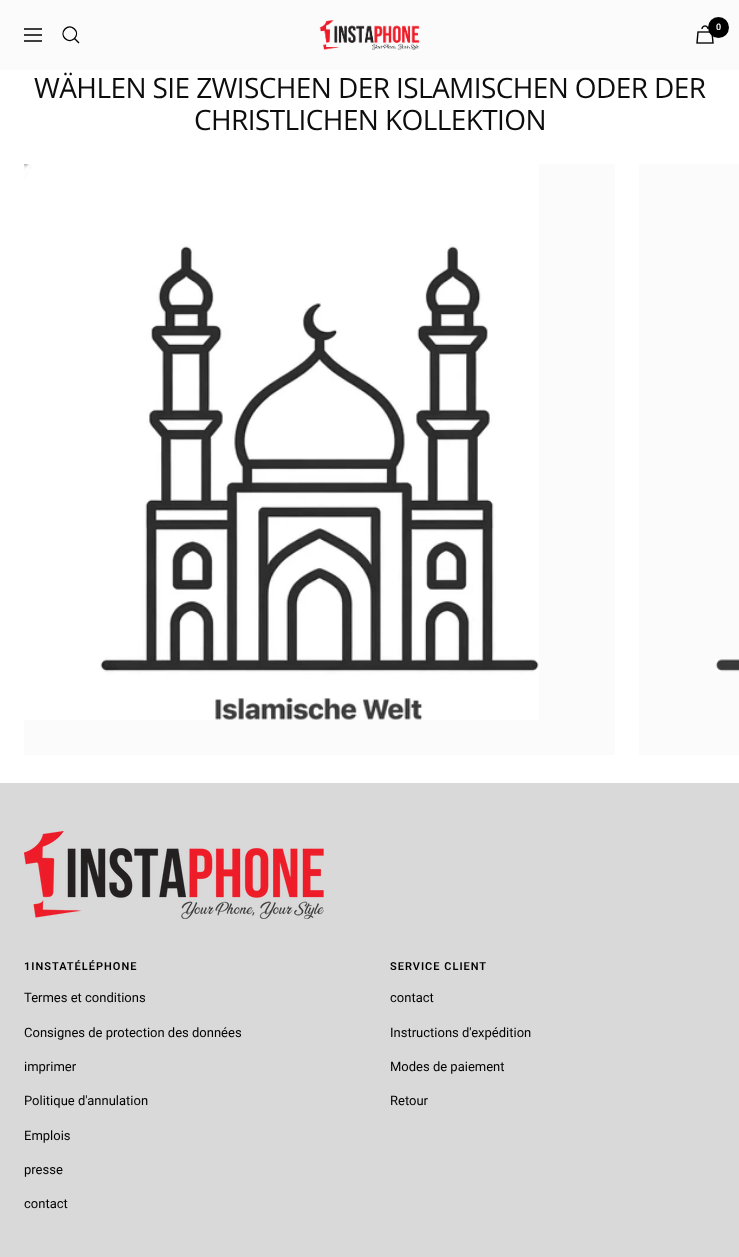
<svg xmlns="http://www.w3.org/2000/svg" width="739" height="1257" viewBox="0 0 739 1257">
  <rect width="100%" height="100%" fill="#fff"/>
  <path d="M0 0h739v70H0z" fill="#fbfbfb"/>
  <path d="M24 29H42M24 41H42ZM24 35H42ZM74.5 38.5C80.5 32 71.5 23 65 29C59 35.5 68 44.5 74.5 38.5ZM74.5 38.5L79 43" fill="none" stroke="#000" stroke-width="1.4"/>
  <image x="319" y="20" width="101" height="30" href="img/1.png"/>
  <image x="696" y="25" width="18" height="19" href="img/2.png"/>
  <circle cx="718.5" cy="27.5" r="10.5" fill="#000"/>
  <path d="M24 164h591v591H24z" fill="#fbfbfb"/>
  <image x="24" y="164" width="515" height="556" href="img/3.png"/>
  <path d="M639 164h100v591H639z" fill="#fbfbfb"/>
  <image x="715" y="659" width="24" height="13" href="img/4.png"/>
  <path d="M0 783h739v474H0z" fill="#d9d9d9"/>
  <image x="24" y="831" width="300" height="88" href="img/5.png"/>
  <text x="716" y="30" font-family="Roboto" font-size="9" font-weight="600" fill="#fbfbfb">0</text>
  <g font-family="Open Sans" font-size="28" letter-spacing="-0.6" fill="#0d0d0d">
    <text x="34" y="98">WÄHLEN SIE ZWISCHEN DER ISLAMISCHEN ODER DER</text>
    <text x="194" y="130">CHRISTLICHEN KOLLEKTION</text>
  </g>
  <text x="24" y="970" font-family="Roboto" font-size="11" font-weight="600" letter-spacing="1" fill="#000">1INSTATÉLÉPHONE</text>
  <g font-family="Roboto" font-size="13" fill="#000">
    <text x="24" y="1002">Termes et conditions</text>
    <text x="24" y="1037">Consignes de protection des données</text>
    <text x="24" y="1071">imprimer</text>
    <text x="24" y="1105">Politique d'annulation</text>
    <text x="24" y="1140">Emplois</text>
    <text x="24" y="1174">presse</text>
    <text x="24" y="1208">contact</text>
  </g>
  <text x="390" y="970" font-family="Roboto" font-size="11" font-weight="600" letter-spacing="1" fill="#000">SERVICE CLIENT</text>
  <g font-family="Roboto" font-size="13" fill="#000">
    <text x="390" y="1002">contact</text>
    <text x="390" y="1037">Instructions d'expédition</text>
    <text x="390" y="1071">Modes de paiement</text>
    <text x="390" y="1105">Retour</text>
  </g>
</svg>
